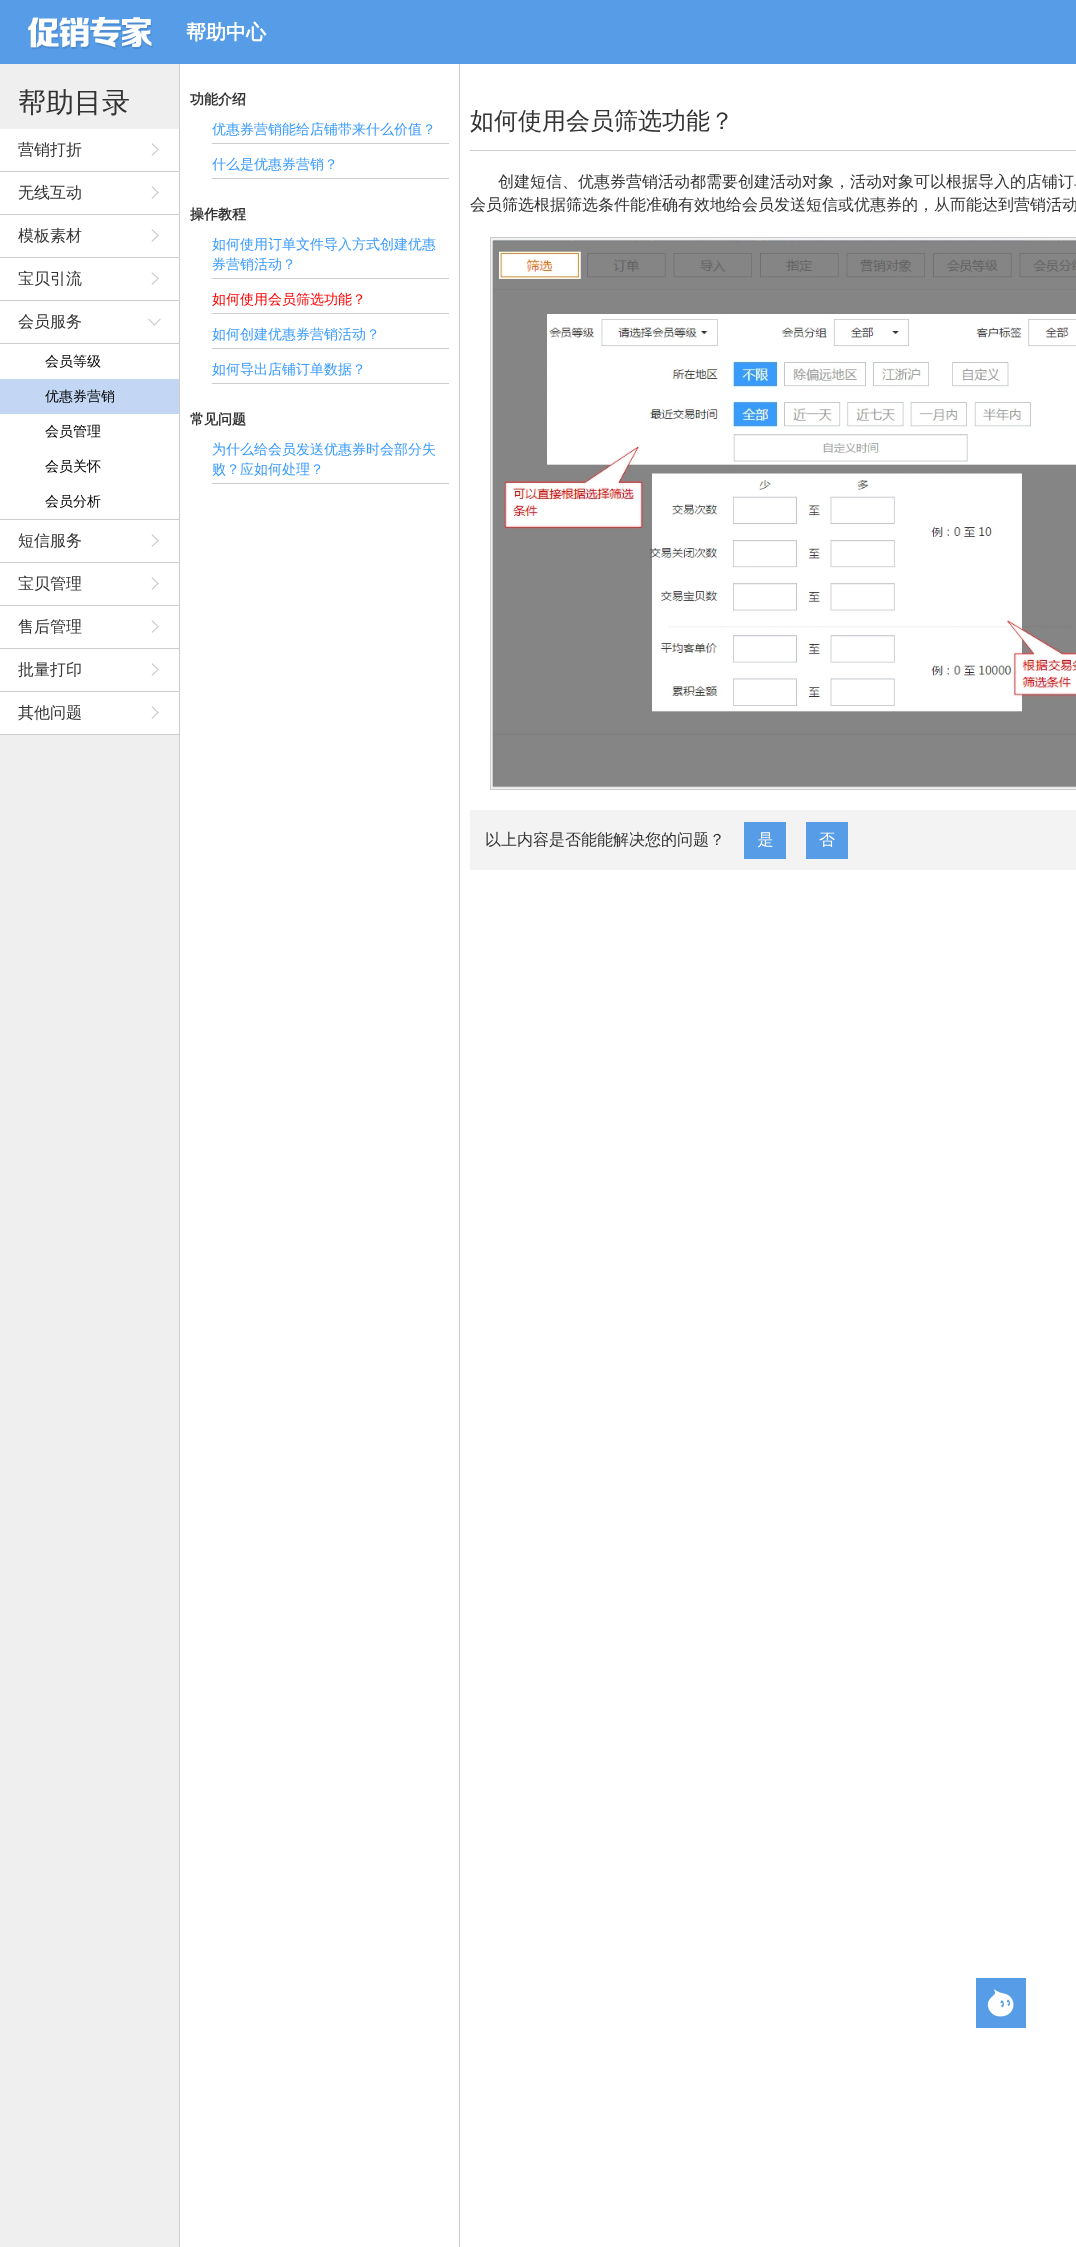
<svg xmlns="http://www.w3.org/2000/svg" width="1076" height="2247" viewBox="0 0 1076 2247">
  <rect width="100%" height="100%" fill="#fff"/>
  <path d="M0 0h1076v64H0z" fill="#579ce7"/>
  <image x="28" y="17" width="125" height="33" href="img/1.png"/>
  <path d="M0 64h179v2183H0z" fill="#efefef"/>
  <path d="M179 64h1v2183H179z" fill="#ccc"/>
  <path d="M0 129h179v605H0z" fill="#fff"/>
  <path d="M0 171h179v1H0z" fill="#ccc"/>
  <image x="151" y="143" width="8" height="13" href="img/2.png"/>
  <path d="M0 214h179v1H0z" fill="#ccc"/>
  <image x="151" y="186" width="8" height="13" href="img/2.png"/>
  <path d="M0 257h179v1H0z" fill="#ccc"/>
  <image x="151" y="229" width="8" height="13" href="img/2.png"/>
  <path d="M0 300h179v1H0z" fill="#ccc"/>
  <image x="151" y="272" width="8" height="13" href="img/2.png"/>
  <path d="M0 343h179v1H0z" fill="#ccc"/>
  <image x="148" y="318" width="13" height="8" href="img/3.png"/>
  <path d="M0 519h179v1H0z" fill="#ccc"/>
  <path d="M0 379h179v35H0z" fill="#c3d7f5"/>
  <path d="M0 562h179v1H0z" fill="#ccc"/>
  <image x="151" y="534" width="8" height="13" href="img/2.png"/>
  <path d="M0 605h179v1H0z" fill="#ccc"/>
  <image x="151" y="577" width="8" height="13" href="img/2.png"/>
  <path d="M0 648h179v1H0z" fill="#ccc"/>
  <image x="151" y="620" width="8" height="13" href="img/2.png"/>
  <path d="M0 691h179v1H0z" fill="#ccc"/>
  <image x="151" y="663" width="8" height="13" href="img/2.png"/>
  <path d="M0 734h179v1H0z" fill="#ccc"/>
  <image x="151" y="706" width="8" height="13" href="img/2.png"/>
  <path d="M459 64h1v2183H459z" fill="#ccc"/>
  <path d="M212 143h237v1H212z" fill="#ccc"/>
  <path d="M212 178h237v1H212z" fill="#ccc"/>
  <path d="M212 278h237v1H212z" fill="#ccc"/>
  <path d="M212 313h237v1H212z" fill="#ccc"/>
  <path d="M212 348h237v1H212z" fill="#ccc"/>
  <path d="M212 383h237v1H212z" fill="#ccc"/>
  <path d="M212 483h237v1H212z" fill="#ccc"/>
  <image x="470" y="109" width="606" height="761" href="img/4.png"/>
  <path d="M976 1978h50v50H976z" fill="#579ce7"/>
  <image x="987" y="1989" width="27" height="28" href="img/5.png"/>
  <text x="186" y="39" font-family="WenQuanYi Zen Hei" font-size="20" font-weight="bold" fill="#fff">帮助中心</text>
  <text x="18" y="112" font-family="WenQuanYi Zen Hei" font-size="28" font-weight="500" fill="#333">帮助目录</text>
  <g font-family="WenQuanYi Zen Hei" font-size="16" font-weight="500" fill="#333">
    <text x="18" y="155">营销打折</text>
    <text x="18" y="198">无线互动</text>
    <text x="18" y="241">模板素材</text>
    <text x="18" y="284">宝贝引流</text>
    <text x="18" y="327">会员服务</text>
  </g>
  <g font-family="WenQuanYi Zen Hei" font-size="14" font-weight="500" fill="#000">
    <text x="45" y="366">会员等级</text>
    <text x="45" y="401">优惠券营销</text>
    <text x="45" y="436">会员管理</text>
    <text x="45" y="471">会员关怀</text>
    <text x="45" y="506">会员分析</text>
  </g>
  <g font-family="WenQuanYi Zen Hei" font-size="16" font-weight="500" fill="#333">
    <text x="18" y="546">短信服务</text>
    <text x="18" y="589">宝贝管理</text>
    <text x="18" y="632">售后管理</text>
    <text x="18" y="675">批量打印</text>
    <text x="18" y="718">其他问题</text>
  </g>
  <text x="190" y="104" font-family="WenQuanYi Zen Hei" font-size="14" font-weight="bold" fill="#333">功能介绍</text>
  <g font-family="WenQuanYi Zen Hei" font-size="14" font-weight="500" fill="#399bff">
    <text x="212" y="134">优惠券营销能给店铺带来什么价值？</text>
    <text x="212" y="169">什么是优惠券营销？</text>
  </g>
  <text x="190" y="219" font-family="WenQuanYi Zen Hei" font-size="14" font-weight="bold" fill="#333">操作教程</text>
  <g font-family="WenQuanYi Zen Hei" font-size="14" font-weight="500" fill="#399bff">
    <text x="212" y="249">如何使用订单文件导入方式创建优惠</text>
    <text x="212" y="269">券营销活动？</text>
  </g>
  <text x="212" y="304" font-family="WenQuanYi Zen Hei" font-size="14" font-weight="500" fill="#f00">如何使用会员筛选功能？</text>
  <g font-family="WenQuanYi Zen Hei" font-size="14" font-weight="500" fill="#399bff">
    <text x="212" y="339">如何创建优惠券营销活动？</text>
    <text x="212" y="374">如何导出店铺订单数据？</text>
  </g>
  <text x="190" y="424" font-family="WenQuanYi Zen Hei" font-size="14" font-weight="bold" fill="#333">常见问题</text>
  <g font-family="WenQuanYi Zen Hei" font-size="14" font-weight="500" fill="#399bff">
    <text x="212" y="454">为什么给会员发送优惠券时会部分失</text>
    <text x="212" y="474">败？应如何处理？</text>
  </g>
</svg>
